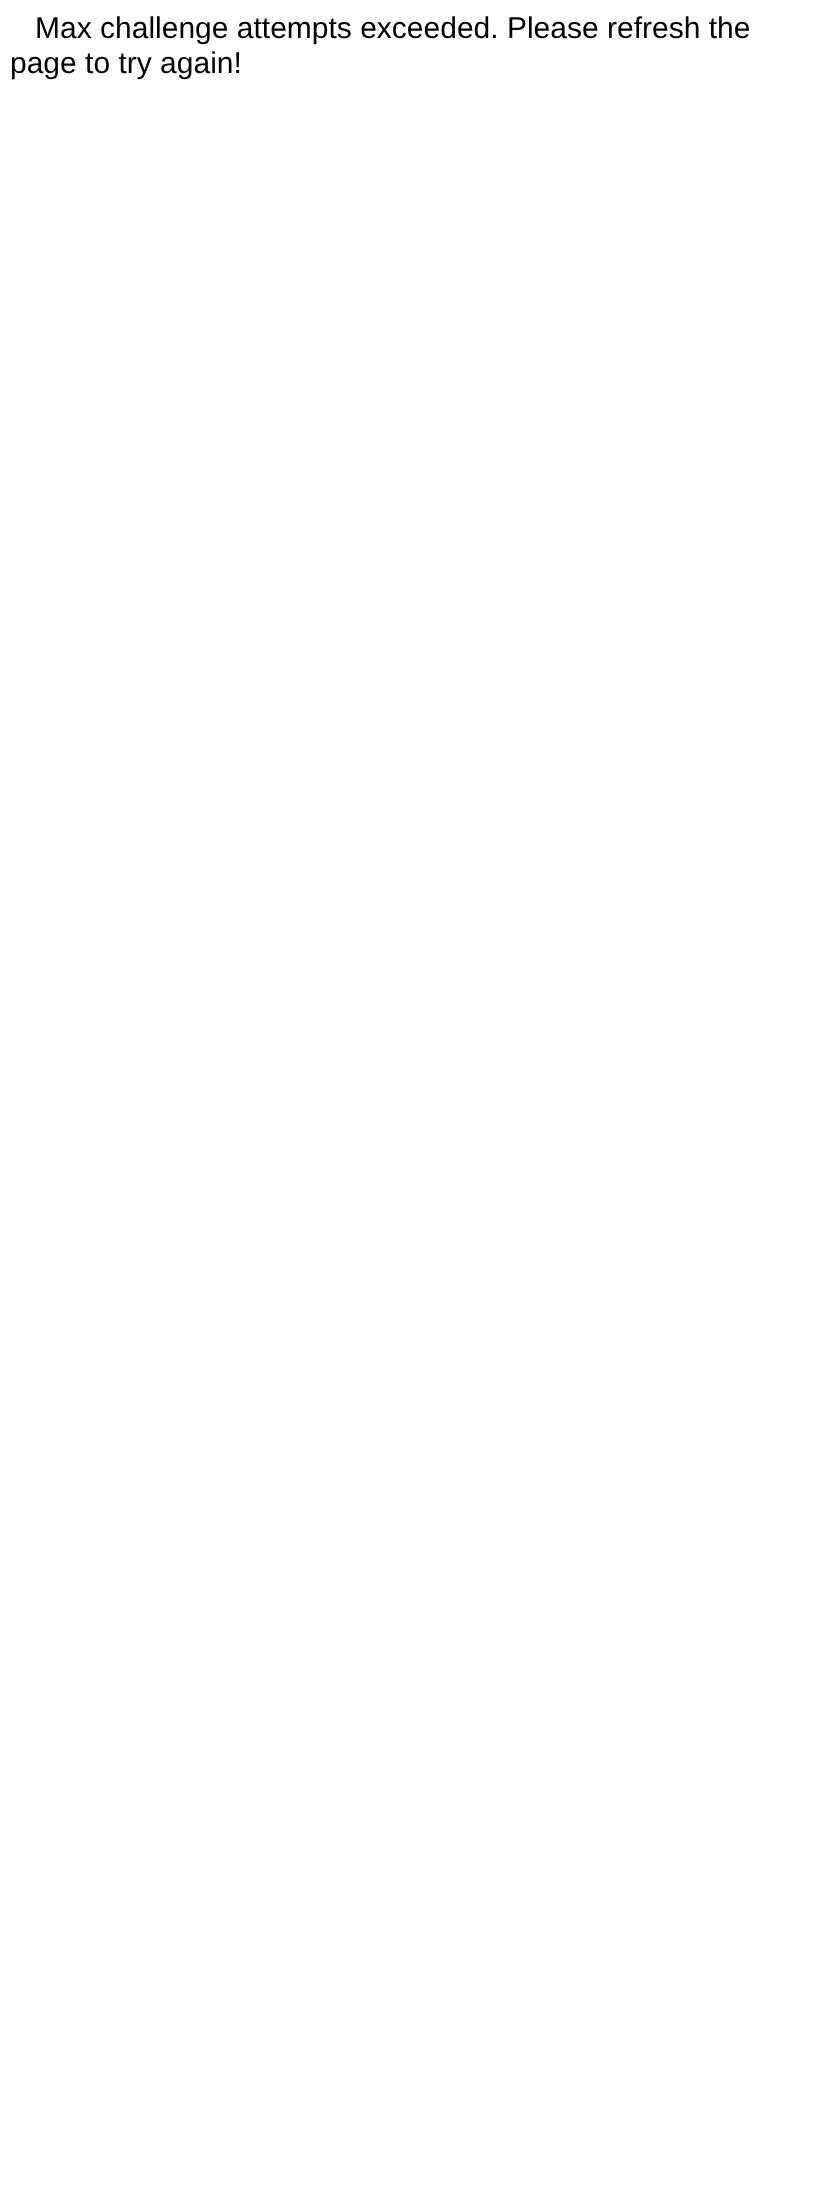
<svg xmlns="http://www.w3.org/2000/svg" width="829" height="2205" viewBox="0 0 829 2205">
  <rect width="100%" height="100%" fill="#fff"/>
  <g font-family="Liberation Sans" font-size="30" fill="#000">
    <text x="35" y="38">Max challenge attempts exceeded. Please refresh the</text>
    <text x="10" y="73">page to try again!</text>
  </g>
</svg>
